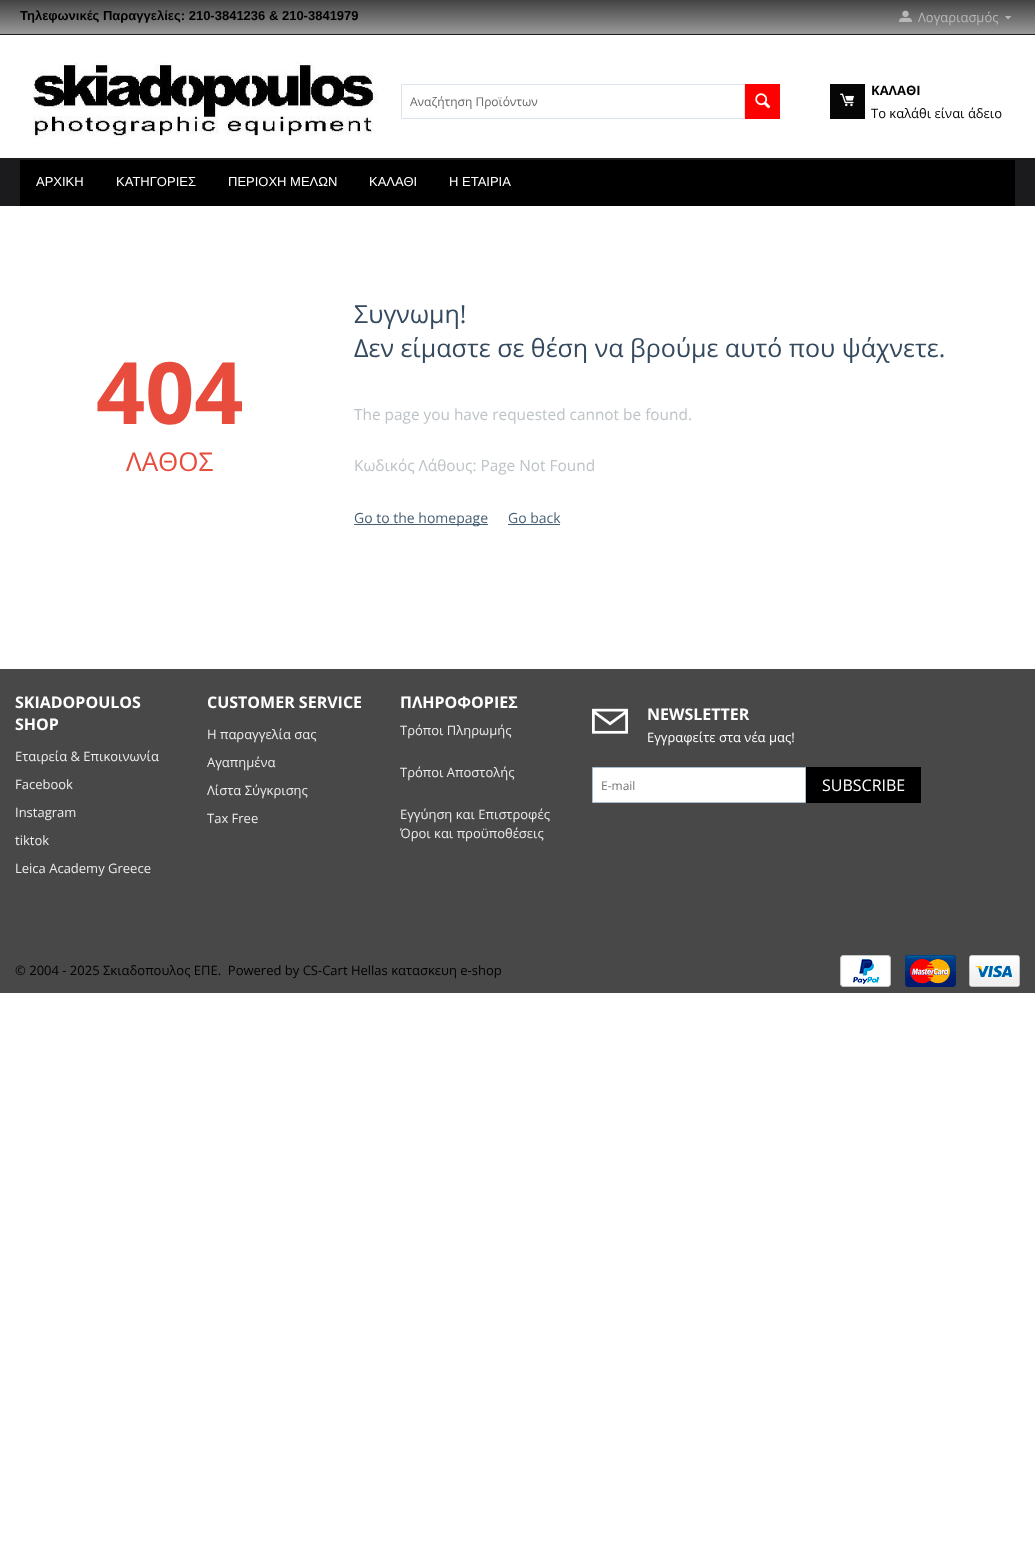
<svg xmlns="http://www.w3.org/2000/svg" width="1035" height="1560" viewBox="0 0 1035 1560">
  <defs>
    <linearGradient id="g1" gradientUnits="userSpaceOnUse" x1="518" y1="0" x2="518" y2="34"><stop offset="0" stop-color="#434343"/><stop offset="1" stop-color="#999"/></linearGradient>
  </defs>
  <rect width="100%" height="100%" fill="#fff"/>
  <path d="M0 0h1035v34H0z" fill="url(#g1)"/>
  <path d="M0 34h1035v1H0z" fill="#1d1d1d"/>
  <image x="899" y="10" width="13" height="12" href="img/1.png"/>
  <path d="M1008 19.5L1005 16H1011.5Z" fill="#b7b7b7"/>
  <path d="M0 158h1035v48H0z" fill="#1b1b1d"/>
  <image x="33" y="62" width="346" height="76" href="img/2.png"/>
  <path d="M401.5 84.5h343v34H401.5z" fill="none" stroke="#dce3ea"/>
  <path d="M745 84h35v35H745z" fill="#f00"/>
  <image x="755" y="93" width="16" height="16" href="img/3.png"/>
  <path d="M830 84h35v35H830z" fill="#060606"/>
  <image x="840" y="93" width="14" height="14" href="img/4.png"/>
  <path d="M20 160h995v46H20z" fill="#000"/>
  <path d="M354 524h134v1H354z" fill="#465f73"/>
  <path d="M508 524h52v1H508z" fill="#465f73"/>
  <path d="M0 669h1035v324H0z" fill="#484848"/>
  <image x="592" y="708" width="36" height="26" href="img/5.png"/>
  <path d="M592.5 767.5h213v35H592.5z" fill="#fff" stroke="#acbdcd"/>
  <path d="M806 767h115v36H806z" fill="#000"/>
  <image x="840" y="955" width="51" height="32" href="img/6.png"/>
  <image x="905" y="955" width="51" height="32" href="img/7.png"/>
  <image x="969" y="955" width="51" height="32" href="img/8.png"/>
  <text x="20" y="20" font-family="Liberation Sans" font-size="13" font-weight="bold" fill="#000">Τηλεφωνικές Παραγγελίες: 210-3841236 &amp; 210-3841979</text>
  <text x="918" y="22" font-family="Open Sans" font-size="13" fill="#b7b7b7">Λογαριασμός</text>
  <text x="410" y="106" font-family="Open Sans" font-size="12" fill="#666">Αναζήτηση Προϊόντων</text>
  <text x="871" y="95" font-family="Open Sans" font-size="13" font-weight="bold" fill="#000">ΚΑΛΑΘΙ</text>
  <text x="871" y="118" font-family="Open Sans" font-size="13" fill="#000">Το καλάθι είναι άδειο</text>
  <g font-family="Liberation Sans" font-size="13" fill="#fff">
    <text x="36" y="186">ΑΡΧΙΚΗ</text>
    <text x="116" y="186">ΚΑΤΗΓΟΡΙΕΣ</text>
    <text x="228" y="186">ΠΕΡΙΟΧΗ ΜΕΛΩΝ</text>
    <text x="369" y="186">ΚΑΛΑΘΙ</text>
    <text x="449" y="186">Η ΕΤΑΙΡΙΑ</text>
  </g>
  <text x="96" y="424" font-family="Open Sans" font-size="86" font-weight="bold" fill="#e74c3c">404</text>
  <text x="126" y="471" font-family="Open Sans" font-size="26" fill="#e74c3c">ΛΑΘΟΣ</text>
  <g font-family="Open Sans" font-size="25" fill="#34495e">
    <text x="354" y="323">Συγνωμη!</text>
    <text x="354" y="357">Δεν είμαστε σε θέση να βρούμε αυτό που ψάχνετε.</text>
  </g>
  <g font-family="Open Sans" font-size="15.4" fill="#bdc3c7">
    <text x="354" y="420">The page you have requested cannot be found.</text>
    <text x="354" y="471">Κωδικός Λάθους: Page Not Found</text>
  </g>
  <g font-family="Open Sans" font-size="14" fill="#465f73">
    <text x="354" y="523">Go to the homepage</text>
    <text x="508" y="523">Go back</text>
  </g>
  <g font-family="Open Sans" font-size="16" font-weight="bold" fill="#fff">
    <text x="15" y="708">SKIADOPOULOS</text>
    <text x="15" y="730">SHOP</text>
  </g>
  <g font-family="Open Sans" font-size="13" fill="#ececec">
    <text x="15" y="761">Εταιρεία &amp; Επικοινωνία</text>
    <text x="15" y="789">Facebook</text>
    <text x="15" y="817">Instagram</text>
    <text x="15" y="845">tiktok</text>
    <text x="15" y="873">Leica Academy Greece</text>
  </g>
  <text x="207" y="708" font-family="Open Sans" font-size="16" font-weight="bold" fill="#fff">CUSTOMER SERVICE</text>
  <g font-family="Open Sans" font-size="13" fill="#ececec">
    <text x="207" y="739">Η παραγγελία σας</text>
    <text x="207" y="767">Αγαπημένα</text>
    <text x="207" y="795">Λίστα Σύγκρισης</text>
    <text x="207" y="823">Tax Free</text>
  </g>
  <text x="400" y="708" font-family="Open Sans" font-size="16" font-weight="bold" fill="#fff">ΠΛΗΡΟΦΟΡΙΕΣ</text>
  <g font-family="Open Sans" font-size="13" fill="#ececec">
    <text x="400" y="735">Τρόποι Πληρωμής</text>
    <text x="400" y="777">Τρόποι Αποστολής</text>
    <text x="400" y="819">Εγγύηση και Επιστροφές</text>
    <text x="400" y="838">Όροι και προϋποθέσεις</text>
  </g>
  <text x="647" y="720" font-family="Open Sans" font-size="16" font-weight="bold" fill="#fff">NEWSLETTER</text>
  <text x="647" y="742" font-family="Open Sans" font-size="13" fill="#fff">Εγγραφείτε στα νέα μας!</text>
  <text x="601" y="790" font-family="Open Sans" font-size="12" fill="#757575">E-mail</text>
  <text x="822" y="791" font-family="Open Sans" font-size="16" fill="#fff">SUBSCRIBE</text>
  <text x="15" y="975" font-family="Open Sans" font-size="13" fill="#000" xml:space="preserve">© 2004 - 2025 Σκιαδοπουλος ΕΠΕ.  Powered by CS-Cart Hellas κατασκευη e-shop</text>
</svg>
